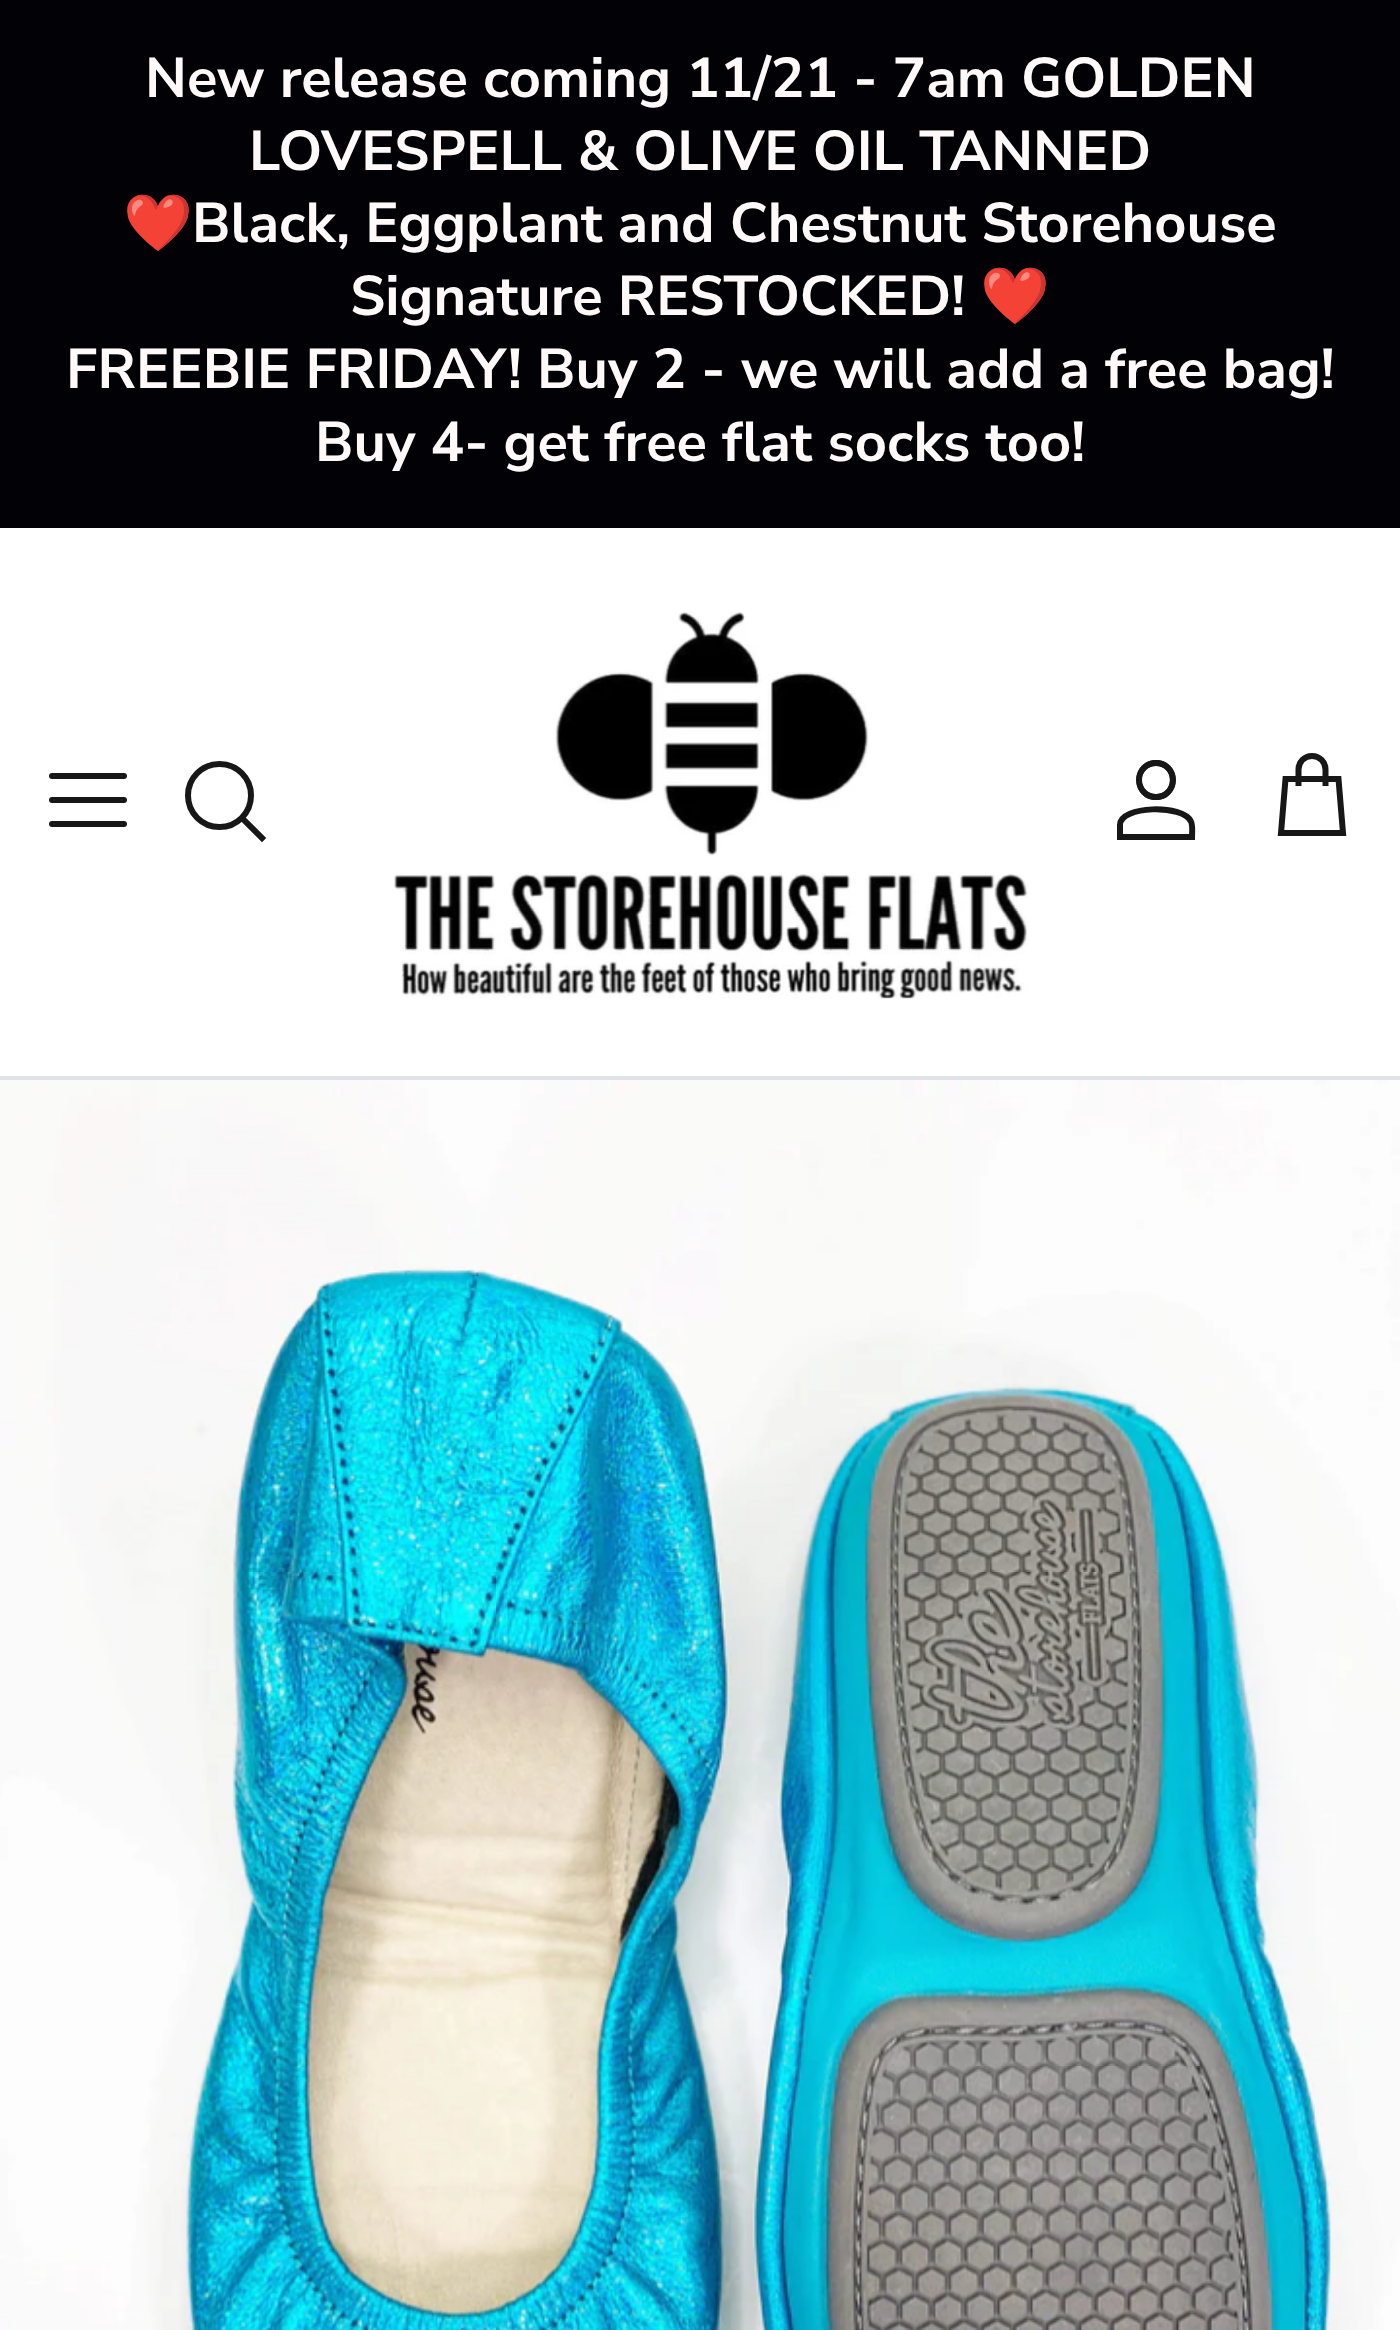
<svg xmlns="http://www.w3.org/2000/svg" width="1400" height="2330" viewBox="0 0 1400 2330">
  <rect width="100%" height="100%" fill="#fff"/>
  <path d="M0 0h1400v528H0z" fill="#010106"/>
  <path d="M0 1076h1400v4H0z" fill="#dfe3e8"/>
  <path d="M52 776H124" fill="none" stroke="#171717" stroke-width="6" stroke-linecap="round" stroke-linejoin="round"/>
  <path d="M52 800H124" fill="none" stroke="#171717" stroke-width="6" stroke-linecap="round" stroke-linejoin="round"/>
  <path d="M52 824H124" fill="none" stroke="#171717" stroke-width="6" stroke-linecap="round" stroke-linejoin="round"/>
  <circle cx="219.5" cy="795.5" r="31.5" fill="none" stroke="#171717" stroke-width="6"/>
  <path d="M244 820L262 838" fill="none" stroke="#171717" stroke-width="6" stroke-linecap="square"/>
  <image x="394" y="611" width="635" height="388" href="img/1.png"/>
  <path d="M1156 760C1182 760 1182 800 1156 800C1130 800 1130 760 1156 760ZM1156 766C1137 766 1137 794 1156 794C1174 795 1175 766 1156 766Z" fill="#171717" fill-rule="evenodd"/>
  <circle cx="1156" cy="780" r="17" fill="none" stroke="#171717" stroke-width="6"/>
  <path d="M1120 825C1120 805.5 1183 804 1191 821.5C1193 825.5 1192 832.5 1192 837H1120Z" fill="none" stroke="#171717" stroke-width="6"/>
  <path d="M1325.5 786V769.5C1325.5 762 1319.5 756 1312 756C1304.5 756 1298.5 762 1298.5 769.5V786" fill="none" stroke="#171717" stroke-width="6"/>
  <path d="M1285.5 779H1338.5L1343 833H1281Z" fill="none" stroke="#171717" stroke-width="6"/>
  <image x="0" y="1080" width="1400" height="1250" href="img/2.png"/>
  <g font-family="Nunito Sans" font-size="56" font-weight="bold" fill="#fff9f9">
    <text x="145" y="97">New release coming 11/21 - 7am GOLDEN</text>
    <text x="249" y="170">LOVESPELL &amp; OLIVE OIL TANNED</text>
  </g>
  <text x="123" y="242" font-family="Noto Color Emoji" font-size="56" font-weight="bold" fill="#fff9f9">❤️</text>
  <g font-family="Nunito Sans" font-size="56" font-weight="bold" fill="#fff9f9">
    <text x="192" y="242">Black, Eggplant and Chestnut Storehouse</text>
    <text x="350" y="315">Signature RESTOCKED!</text>
  </g>
  <text x="980" y="315" font-family="Noto Color Emoji" font-size="56" font-weight="bold" fill="#fff9f9">❤️</text>
  <g font-family="Nunito Sans" font-size="56" font-weight="bold" fill="#fff9f9">
    <text x="66" y="388">FREEBIE FRIDAY! Buy 2 - we will add a free bag!</text>
    <text x="315" y="461">Buy 4- get free flat socks too!</text>
  </g>
</svg>
